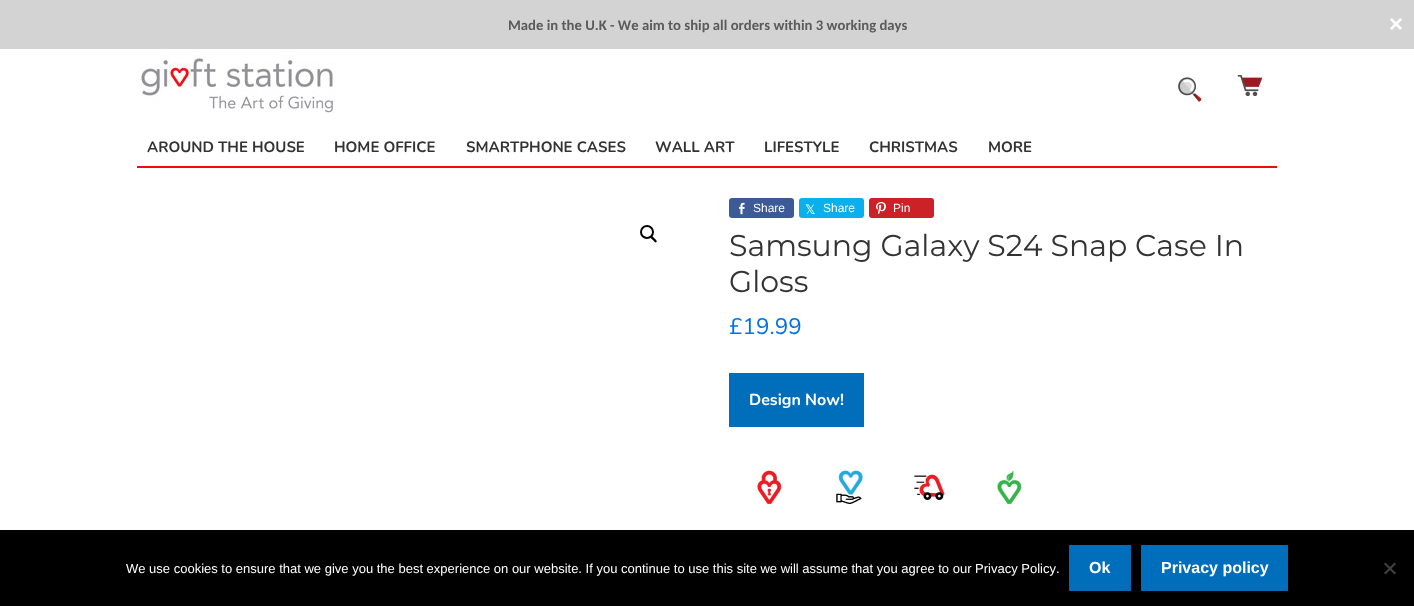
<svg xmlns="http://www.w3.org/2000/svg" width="1414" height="606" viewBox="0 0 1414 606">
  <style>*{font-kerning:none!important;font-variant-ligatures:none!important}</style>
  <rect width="100%" height="100%" fill="#fff"/>
  <path d="M0 0h1414v49H0z" fill="#d3d3d3"/>
  <image x="137" y="55" width="199" height="58" href="img/1.png"/>
  <image x="1178" y="77" width="24" height="25" href="img/2.png"/>
  <image x="1237" y="75" width="25" height="21" href="img/3.png"/>
  <path d="M137 166h1140v2H137z" fill="#f30a0a"/>
  <circle cx="647" cy="232" r="6" fill="none" stroke="#000" stroke-width="2"/>
  <path d="M651 236.5C652 235 653.5 238 654.5 238.5C655 239 657.5 241 656.5 242C655 243.5 653.5 240.5 653 240C652.5 239.5 649.5 237.5 651 236.5Z" fill="#000"/>
  <rect x="729" y="198" width="65" height="20" rx="3" fill="#3d5a98"/>
  <image x="739" y="202" width="6" height="13" href="img/4.png"/>
  <rect x="799" y="198" width="65" height="20" rx="3" fill="#09b0ed"/>
  <rect x="869" y="198" width="65" height="20" rx="3" fill="#cb2127"/>
  <image x="876" y="202" width="10" height="12" href="img/5.png"/>
  <path d="M729 373h135v54H729z" fill="#006ebb"/>
  <image x="756" y="467" width="28" height="40" href="img/6.png"/>
  <image x="836" y="468" width="28" height="36" href="img/7.png"/>
  <image x="913" y="472" width="35" height="28" href="img/8.png"/>
  <image x="996" y="470" width="28" height="37" href="img/9.png"/>
  <path d="M0 530h1414v76H0z" fill="#000"/>
  <path d="M1069 545h62v46H1069z" fill="#006ebb"/>
  <path d="M1141 545h147v46H1141z" fill="#006ebb"/>
  <path d="M1394.5 562.5L1396 564L1385.5 574.5L1384 573Z" fill="#404040"/>
  <path d="M1384 564L1385.5 562.5L1396 573L1394.5 574.5Z" fill="#404040"/>
  <text x="508" y="30" font-family="Carlito" font-size="14.7" font-weight="bold" fill="#5b5b5b">Made in the U.K - We aim to ship all orders within 3 working days</text>
  <text x="1389" y="32" font-family="Liberation Sans" font-size="24" font-weight="bold" fill="#fff">×</text>
  <g font-family="Nunito" font-size="15" font-weight="bold" fill="#333">
    <text x="147" y="152">AROUND THE HOUSE</text>
    <text x="334" y="152">HOME OFFICE</text>
    <text x="466" y="152">SMARTPHONE CASES</text>
    <text x="655" y="152">WALL ART</text>
    <text x="764" y="152">LIFESTYLE</text>
    <text x="869" y="152">CHRISTMAS</text>
    <text x="988" y="152">MORE</text>
  </g>
  <text x="753" y="212" font-family="Liberation Sans" font-size="12" fill="#fff">Share</text>
  <text x="805" y="214" font-family="DejaVu Sans" font-size="13" fill="#fff">𝕏</text>
  <g font-family="Liberation Sans" font-size="12" fill="#fff">
    <text x="823" y="212">Share</text>
    <text x="893" y="212">Pin</text>
  </g>
  <g font-family="Montserrat" font-size="30" fill="#333">
    <text x="729" y="256">Samsung Galaxy S24 Snap Case In</text>
    <text x="729" y="292">Gloss</text>
  </g>
  <text x="729" y="334" font-family="Nunito" font-size="22.5" fill="#0073e5">£19.99</text>
  <text x="749" y="405" font-family="Nunito" font-size="16" font-weight="bold" fill="#fff">Design Now!</text>
  <text x="126" y="573" font-family="Liberation Sans" font-size="13" fill="#fff">We use cookies to ensure that we give you the best experience on our website. If you continue to use this site we will assume that you agree to our Privacy Policy.</text>
  <g font-family="Liberation Sans" font-size="16" font-weight="bold" fill="#fff">
    <text x="1089" y="573">Ok</text>
    <text x="1161" y="573">Privacy policy</text>
  </g>
</svg>
